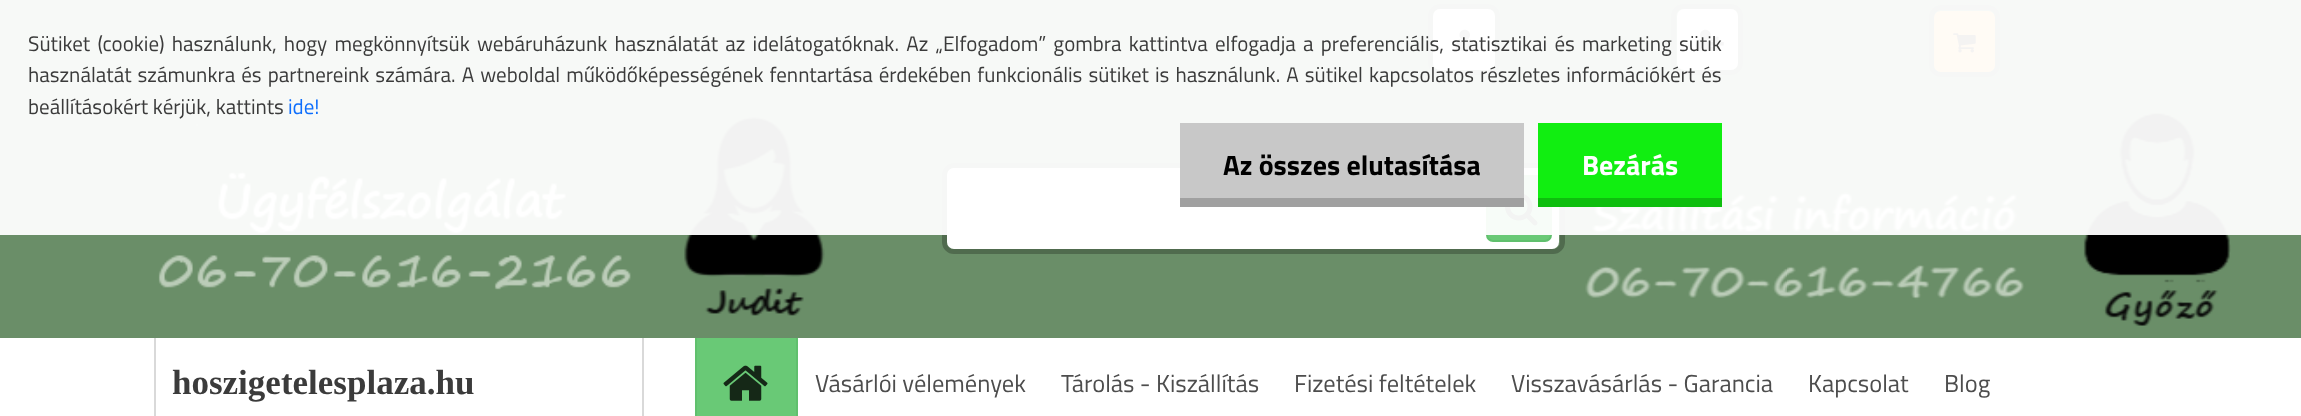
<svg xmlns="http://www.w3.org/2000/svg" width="2301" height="416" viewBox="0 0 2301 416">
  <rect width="100%" height="100%" fill="#6a8e68"/>
  <image x="684" y="113" width="1547" height="213" href="img/1.png"/>
  <image x="158" y="124" width="473" height="166" href="img/2.png"/>
  <rect x="944.5" y="165.5" width="618" height="86" rx="9.5" fill="none" stroke="#506b4e" stroke-width="5"/>
  <rect x="947" y="168" width="612" height="81" rx="7" fill="#fff"/>
  <rect x="1487" y="176" width="64" height="65" rx="6" fill="#69c976" stroke="#60c06d" stroke-width="2"/>
  <image x="1505" y="194" width="33" height="32" href="img/3.png"/>
  <rect x="1430.5" y="6.5" width="67" height="66" rx="9.5" fill="none" stroke="#506b4e" stroke-width="5"/>
  <rect x="1433" y="9" width="62" height="61" rx="7" fill="#f7f7f7"/>
  <image x="1456" y="29" width="18" height="22" href="img/4.png"/>
  <rect x="1673.5" y="6.5" width="67" height="66" rx="9.5" fill="none" stroke="#506b4e" stroke-width="5"/>
  <rect x="1677" y="9" width="61" height="61" rx="7" fill="#f7f7f7"/>
  <image x="1695" y="29" width="29" height="22" href="img/5.png"/>
  <rect x="1931.5" y="7.5" width="66" height="67" rx="9.5" fill="none" stroke="#506b4e" stroke-width="5"/>
  <rect x="1935" y="12" width="59" height="59" rx="6" fill="#ffa641" stroke="#ffa944" stroke-width="2"/>
  <image x="1953" y="33" width="23" height="20" href="img/6.png"/>
  <path d="M0 0h2301v235H0z" fill="#fffffff2"/>
  <path d="M1180 123h344v75H1180z" fill="#c8c8c8"/>
  <path d="M1180 198h344v9H1180z" fill="#a0a0a0"/>
  <path d="M1538 123h184v75H1538z" fill="#1e1"/>
  <path d="M1538 198h184v9H1538z" fill="#0ebe0e"/>
  <path d="M0 338h2301v78H0z" fill="#fff"/>
  <path d="M642 338h2v78H642z" fill="#d9d9d9"/>
  <path d="M154 338h2v78H154z" fill="#d9d9d9"/>
  <path d="M697 338h99v78H697z" fill="#69c976"/>
  <path d="M796 338h2v78H796z" fill="#60c06d"/>
  <path d="M695 338h2v78H695z" fill="#60c06d"/>
  <image x="723" y="365" width="45" height="36" href="img/7.png"/>
  <g font-family="Titillium Web" font-size="21" fill="#3b3b3b">
    <text x="28" y="51" word-spacing="2.6">Sütiket (cookie) használunk, hogy megkönnyítsük webáruházunk használatát az idelátogatóknak. Az „Elfogadom” gombra kattintva elfogadja a preferenciális, statisztikai és marketing sütik</text>
    <text x="28" y="82" word-spacing="1.4">használatát számunkra és partnereink számára. A weboldal működőképességének fenntartása érdekében funkcionális sütiket is használunk. A sütikel kapcsolatos részletes információkért és</text>
    <text x="28" y="114">beállításokért kérjük, kattints</text>
  </g>
  <text x="288" y="114" font-family="Titillium Web" font-size="21" fill="#0d6efd">ide!</text>
  <text x="1223" y="175" font-family="Titillium Web" font-size="28" font-weight="bold" fill="#000">Az összes elutasítása</text>
  <text x="1582" y="175" font-family="Titillium Web" font-size="28" font-weight="bold" fill="#fff">Bezárás</text>
  <text x="172" y="394" font-family="Liberation Serif" font-size="35" font-weight="bold" fill="#3b3b3b">hoszigetelesplaza.hu</text>
  <g font-family="Titillium Web" font-size="24.5" fill="#4d4d4d">
    <text x="815" y="392">Vásárlói vélemények</text>
    <text x="1061" y="392">Tárolás - Kiszállítás</text>
    <text x="1294" y="392">Fizetési feltételek</text>
    <text x="1511" y="392">Visszavásárlás - Garancia</text>
    <text x="1808" y="392">Kapcsolat</text>
    <text x="1944" y="392">Blog</text>
  </g>
</svg>
